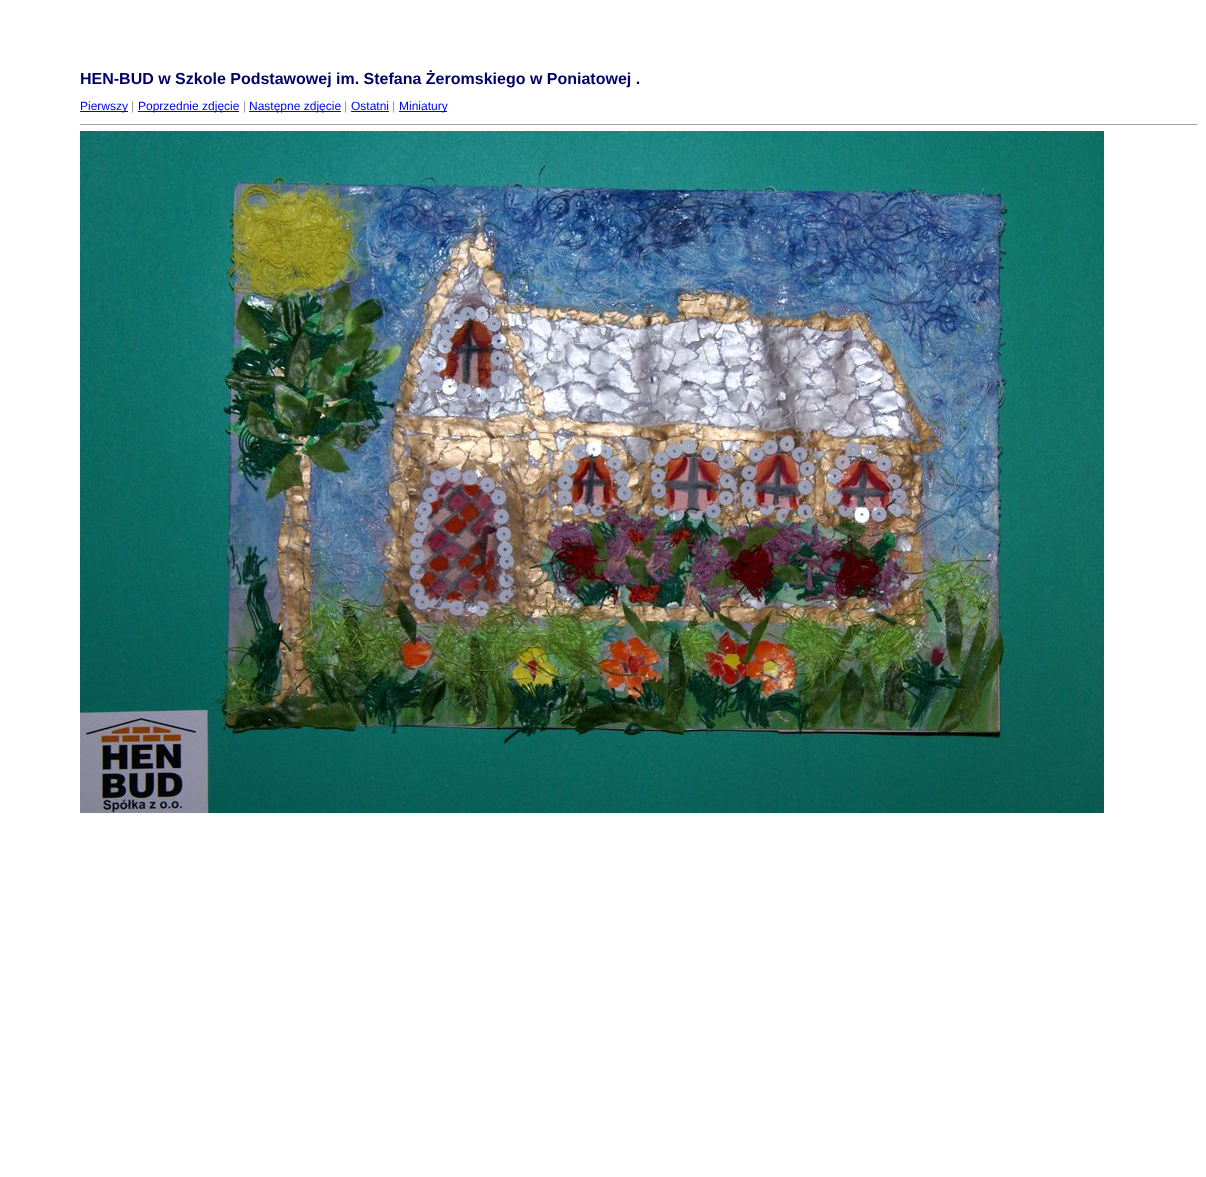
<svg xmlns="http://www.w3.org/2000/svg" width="1206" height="1177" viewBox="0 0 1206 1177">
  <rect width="100%" height="100%" fill="#fff"/>
  <path d="M80 111h48v1H80z" fill="#00e"/>
  <path d="M138 111h101v1H138z" fill="#00e"/>
  <path d="M249 111h92v1H249z" fill="#00e"/>
  <path d="M351 111h38v1H351z" fill="#00e"/>
  <path d="M399 111h48v1H399z" fill="#00e"/>
  <path d="M80 124h1118v1H80z" fill="#9f9f9f"/>
  <path d="M1197 124h1v1H1197z" fill="#eee"/>
  <image x="80" y="131" width="1024" height="682" href="img/1.png"/>
  <text x="80" y="84" font-family="Liberation Sans" font-size="16" font-weight="bold" fill="#006">HEN-BUD w Szkole Podstawowej im. Stefana Żeromskiego w Poniatowej .</text>
  <text x="80" y="110" font-family="Liberation Sans" font-size="12" fill="#00e">Pierwszy</text>
  <text x="131" y="110" font-family="Liberation Sans" font-size="12" fill="#979797">|</text>
  <text x="138" y="110" font-family="Liberation Sans" font-size="12" fill="#00e">Poprzednie zdjęcie</text>
  <text x="243" y="110" font-family="Liberation Sans" font-size="12" fill="#979797">|</text>
  <text x="249" y="110" font-family="Liberation Sans" font-size="12" fill="#00e">Następne zdjęcie</text>
  <text x="344" y="110" font-family="Liberation Sans" font-size="12" fill="#979797">|</text>
  <text x="351" y="110" font-family="Liberation Sans" font-size="12" fill="#00e">Ostatni</text>
  <text x="392" y="110" font-family="Liberation Sans" font-size="12" fill="#979797">|</text>
  <text x="399" y="110" font-family="Liberation Sans" font-size="12" fill="#00e">Miniatury</text>
</svg>
